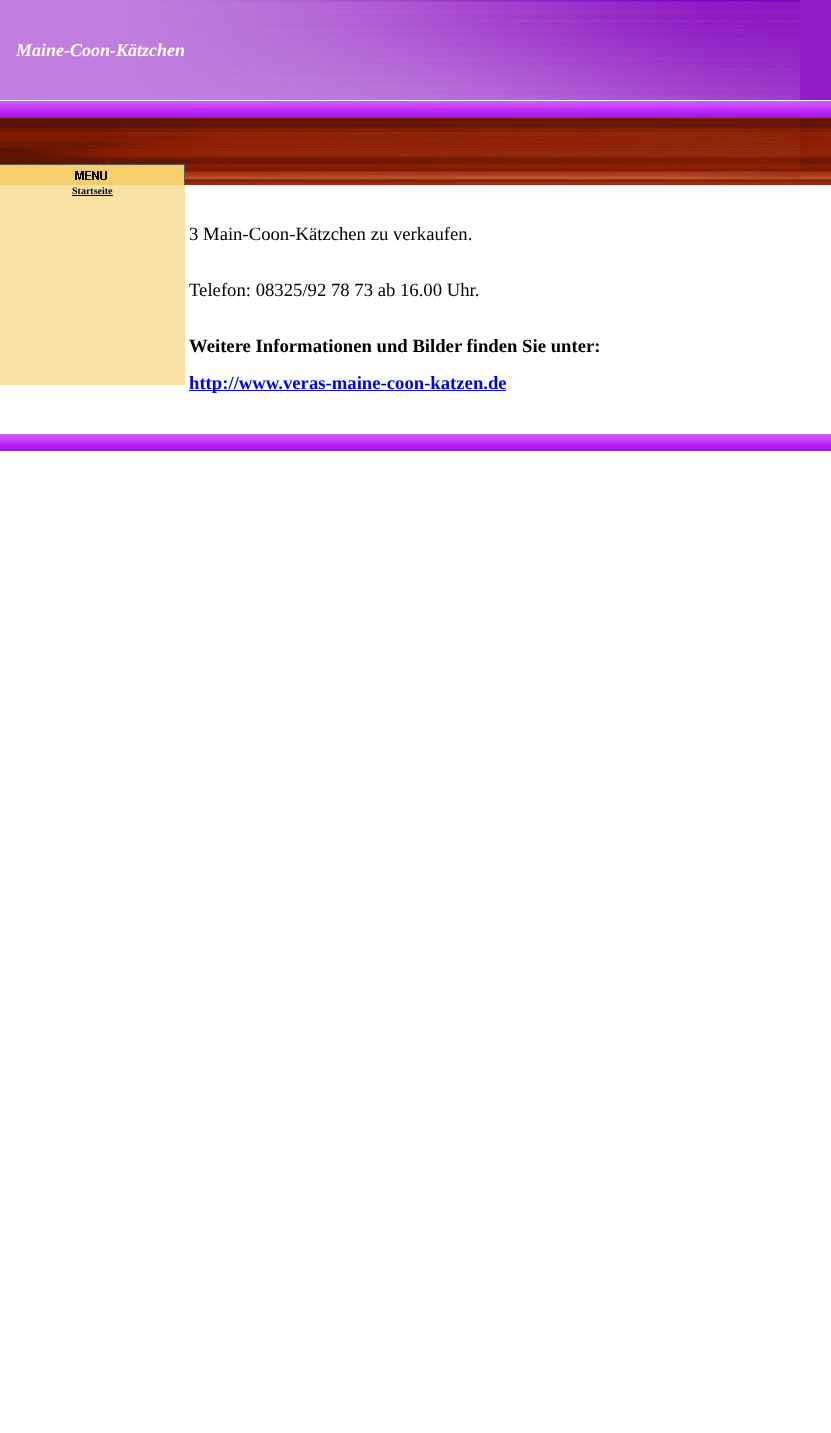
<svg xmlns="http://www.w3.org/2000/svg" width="831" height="1433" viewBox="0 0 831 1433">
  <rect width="100%" height="100%" fill="#fff"/>
  <path d="M800 0h31v100H800z" fill="#911dc6"/>
  <image x="0" y="0" width="800" height="100" href="img/1.png"/>
  <image x="0" y="100" width="185" height="18" href="img/2.png"/>
  <image x="185" y="100" width="615" height="18" href="img/3.png"/>
  <image x="800" y="100" width="31" height="18" href="img/4.png"/>
  <image x="0" y="118" width="185" height="67" href="img/5.png"/>
  <image x="185" y="118" width="615" height="67" href="img/6.png"/>
  <image x="800" y="118" width="31" height="67" href="img/7.png"/>
  <path d="M0 185h185v200H0z" fill="#fae2a4"/>
  <path d="M72 195h41v1H72z" fill="#000"/>
  <path d="M189 390h317v1H189z" fill="#00e"/>
  <image x="0" y="433" width="831" height="18" href="img/8.png"/>
  <text x="16" y="56" font-family="Liberation Serif" font-size="18" font-weight="bold" font-style="italic" fill="#fff">Maine-Coon-Kätzchen</text>
  <text x="72" y="194" font-family="Liberation Serif" font-size="10" font-weight="bold" fill="#000">Startseite</text>
  <g font-family="Liberation Serif" font-size="18.7" fill="#000">
    <text x="189" y="240">3 Main-Coon-Kätzchen zu verkaufen.</text>
    <text x="189" y="296">Telefon: 08325/92 78 73 ab 16.00 Uhr.</text>
  </g>
  <text x="189" y="352" font-family="Liberation Serif" font-size="18.7" font-weight="bold" fill="#000">Weitere Informationen und Bilder finden Sie unter:</text>
  <text x="189" y="389" font-family="Liberation Serif" font-size="18.7" font-weight="bold" fill="#00e">http://www.veras-maine-coon-katzen.de</text>
</svg>
